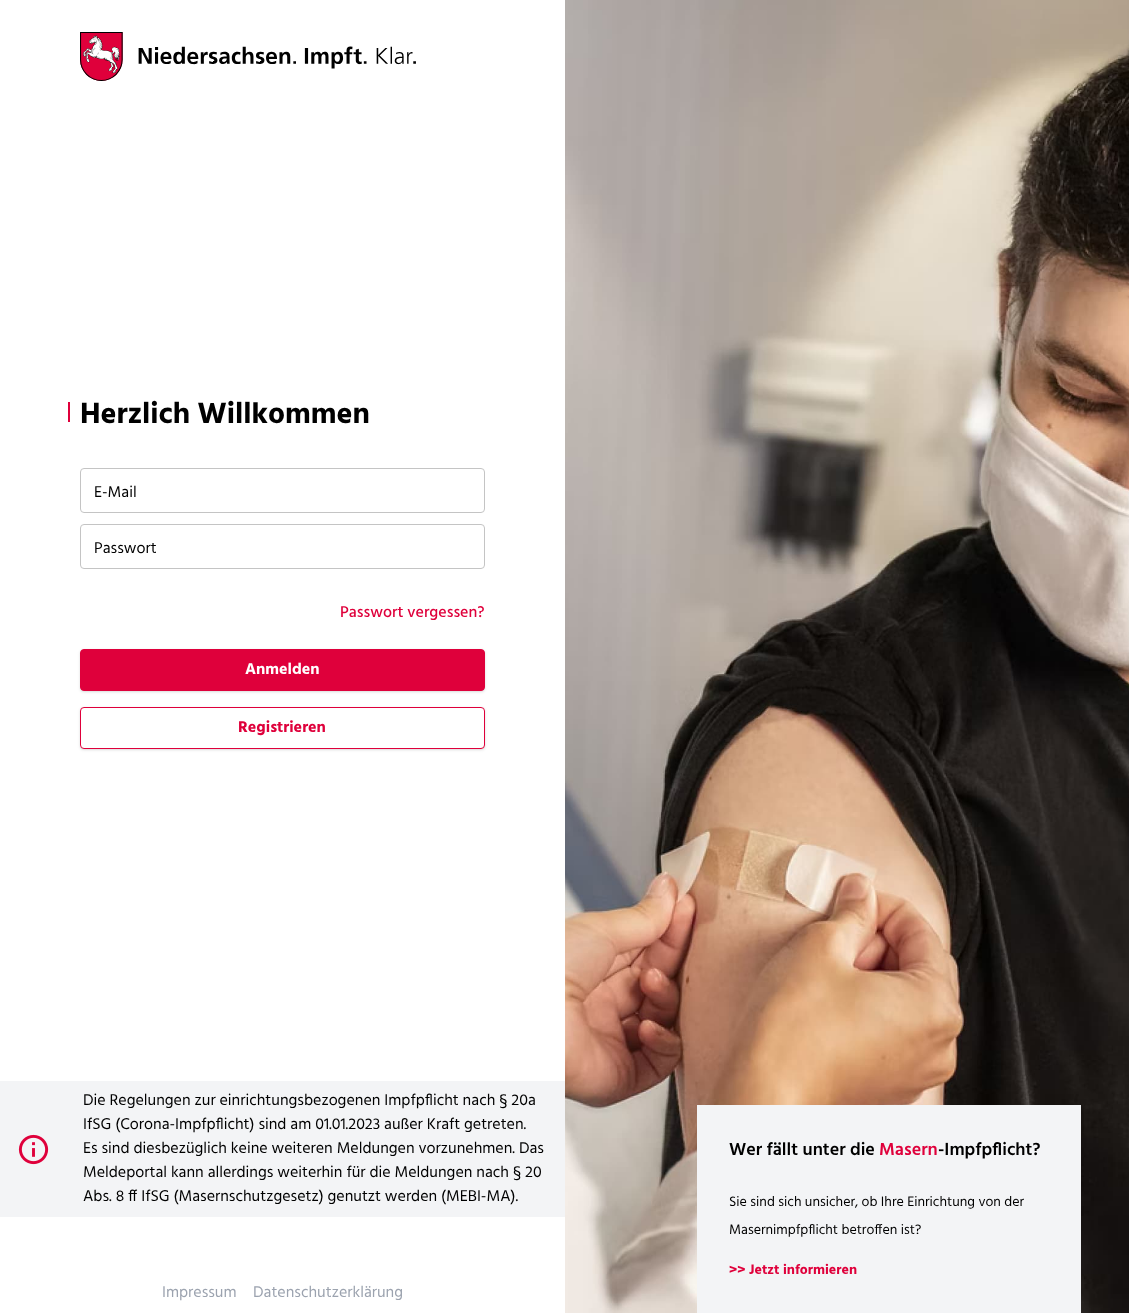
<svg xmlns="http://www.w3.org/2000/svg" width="1129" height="1313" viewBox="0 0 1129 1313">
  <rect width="100%" height="100%" fill="#fff"/>
  <image x="80" y="32" width="336" height="49" href="img/1.png"/>
  <path d="M68 402h2v20H68z" fill="#df003b"/>
  <rect x="80.5" y="468.5" width="404" height="44" rx="3.5" fill="none" stroke="#c4c4c4"/>
  <rect x="80.5" y="524.5" width="404" height="44" rx="3.5" fill="none" stroke="#c4c4c4"/>
  <rect x="81" y="651" width="403" height="40" rx="3" fill="#0000001a" filter="blur(1px)"/>
  <rect x="80" y="650" width="405" height="42" rx="4" fill="#0000001a" filter="blur(1.5px)"/>
  <rect x="80.5" y="649.5" width="404" height="41" rx="3.5" fill="#df003b" stroke="#df003b"/>
  <rect x="81" y="709" width="403" height="40" rx="3" fill="#0000001a" filter="blur(1px)"/>
  <rect x="80" y="708" width="405" height="42" rx="4" fill="#0000001a" filter="blur(1.5px)"/>
  <rect x="80.5" y="707.5" width="404" height="41" rx="3.5" fill="#fff" stroke="#df003b"/>
  <path d="M0 1081h565v136H0z" fill="#f3f4f6"/>
  <image x="18" y="1134" width="31" height="31" href="img/2.png"/>
  <image x="565" y="0" width="564" height="1313" href="img/3.png"/>
  <path d="M697 1105h384v208H697z" fill="#f3f4f6"/>
  <text x="80" y="423" font-family="Hind" font-size="30" font-weight="bold" fill="#000">Herzlich Willkommen</text>
  <g font-family="Hind" font-size="16" fill="#000">
    <text x="94" y="497">E-Mail</text>
    <text x="94" y="553">Passwort</text>
  </g>
  <text x="340" y="617" font-family="Hind" font-size="16" font-weight="500" fill="#df003b">Passwort vergessen?</text>
  <text x="245" y="674" font-family="Hind" font-size="16" font-weight="bold" fill="#fff">Anmelden</text>
  <text x="238" y="732" font-family="Hind" font-size="16" font-weight="bold" fill="#df003b">Registrieren</text>
  <g font-family="Hind" font-size="16" fill="#000">
    <text x="83" y="1105">Die Regelungen zur einrichtungsbezogenen Impfpflicht nach § 20a</text>
    <text x="83" y="1129">IfSG (Corona-Impfpflicht) sind am 01.01.2023 außer Kraft getreten.</text>
    <text x="83" y="1153">Es sind diesbezüglich keine weiteren Meldungen vorzunehmen. Das</text>
    <text x="83" y="1177">Meldeportal kann allerdings weiterhin für die Meldungen nach § 20</text>
    <text x="83" y="1201">Abs. 8 ff IfSG (Masernschutzgesetz) genutzt werden (MEBI-MA).</text>
  </g>
  <g font-family="Hind" font-size="16" fill="#9ca3af">
    <text x="162" y="1297">Impressum</text>
    <text x="253" y="1297">Datenschutzerklärung</text>
  </g>
  <text x="729" y="1155" font-family="Hind" font-size="18" font-weight="600" fill="#000">Wer fällt unter die</text>
  <text x="879" y="1155" font-family="Hind" font-size="18" font-weight="600" fill="#df003b">Masern</text>
  <text x="938" y="1155" font-family="Hind" font-size="18" font-weight="600" fill="#000">-Impfpflicht?</text>
  <g font-family="Hind" font-size="14" fill="#000">
    <text x="729" y="1206">Sie sind sich unsicher, ob Ihre Einrichtung von der</text>
    <text x="729" y="1234">Masernimpfpflicht betroffen ist?</text>
  </g>
  <text x="729" y="1274" font-family="Hind" font-size="14" font-weight="bold" fill="#df003b">&gt;&gt; Jetzt informieren</text>
</svg>
